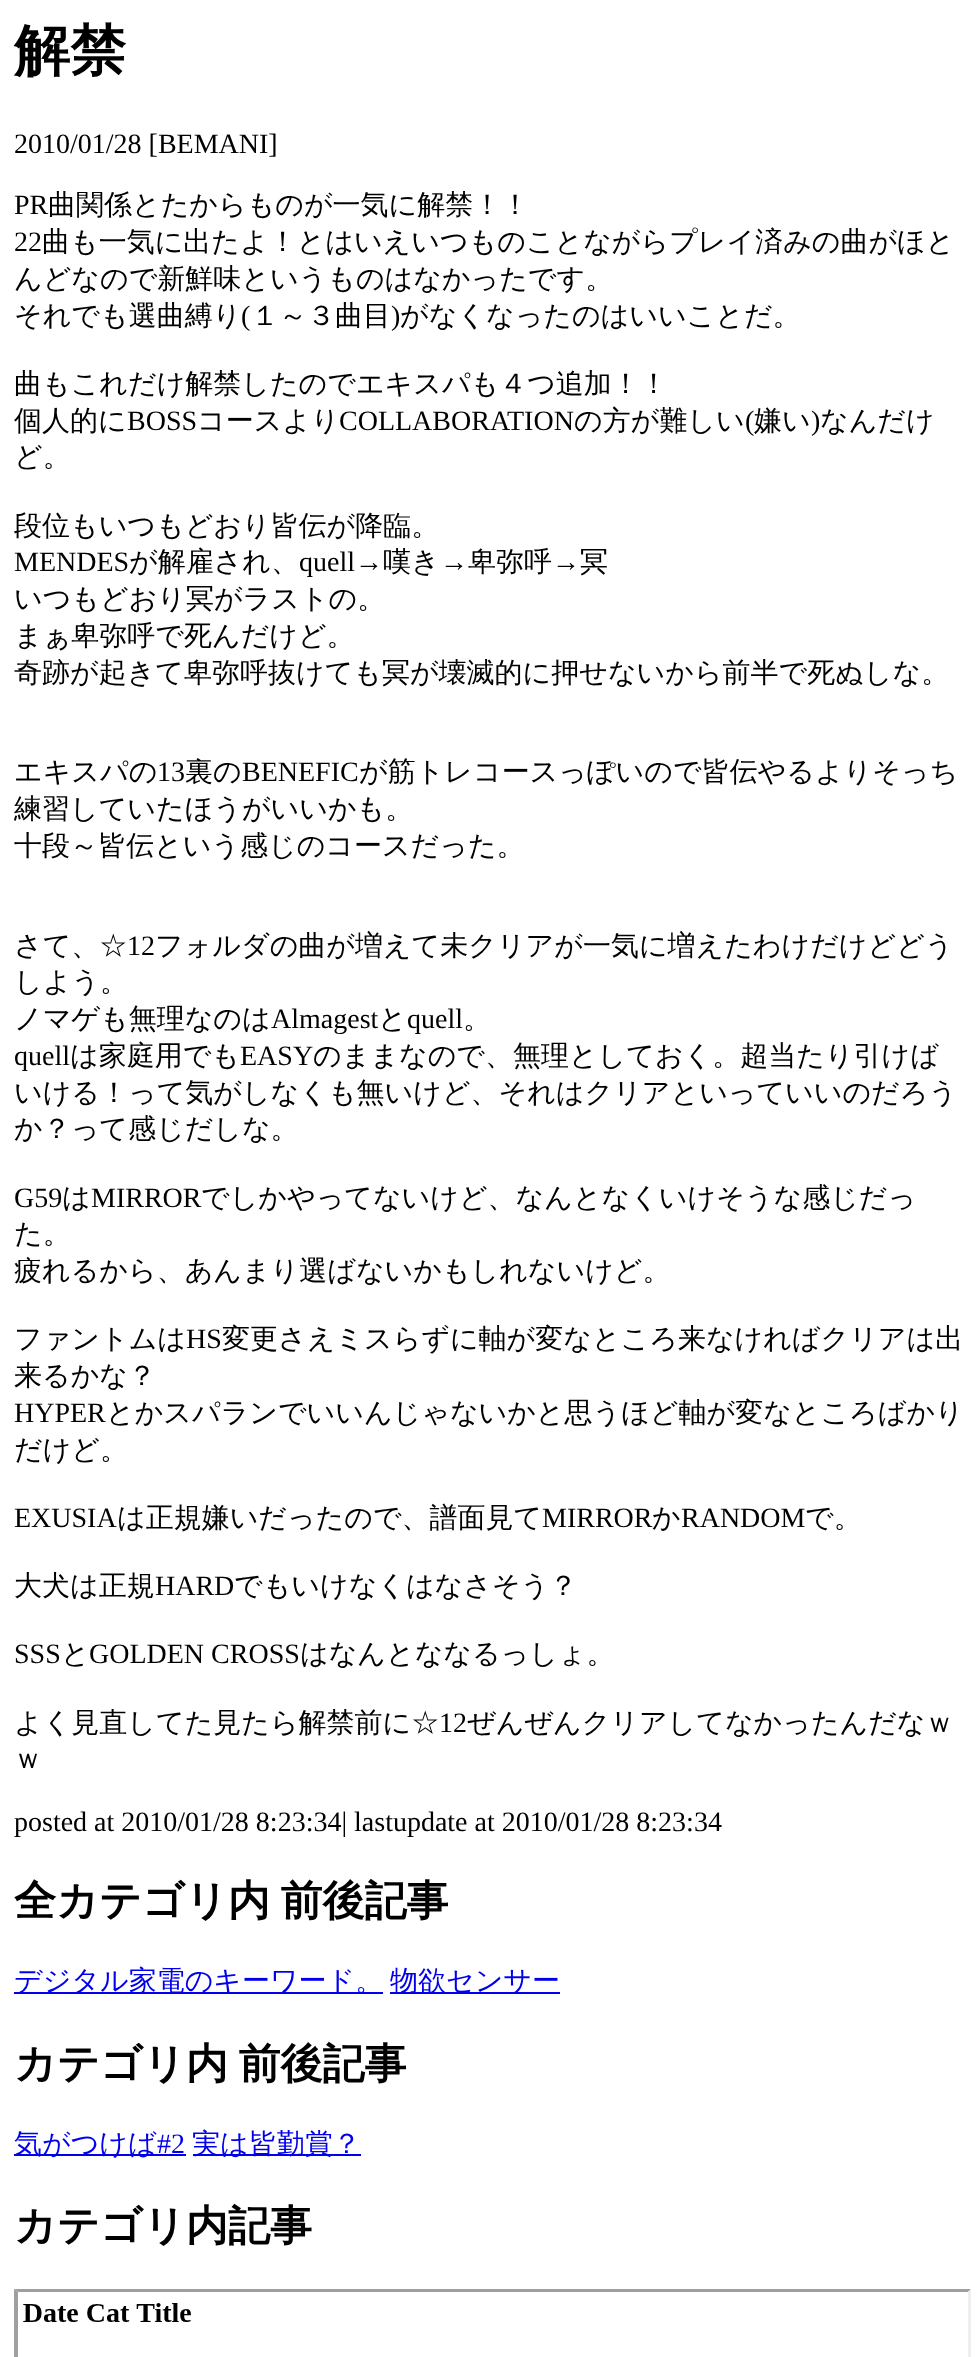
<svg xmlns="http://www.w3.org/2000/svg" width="978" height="2357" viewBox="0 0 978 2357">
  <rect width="100%" height="100%" fill="#fff"/>
  <path d="M14 1992h369v2H14z" fill="#00e"/>
  <path d="M390 1992h170v2H390z" fill="#00e"/>
  <path d="M14 2154h172v2H14z" fill="#00e"/>
  <path d="M193 2154h168v2H193z" fill="#00e"/>
  <path d="M14 2289H971L968 2292H18Z" fill="#9f9f9f"/>
  <path d="M14 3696V2289L18 2292V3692Z" fill="#9f9f9f"/>
  <image x="23" y="2303" width="168" height="19" href="img/1.png"/>
  <path d="M971 2289V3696L968 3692V2292Z" fill="#eee"/>
  <text x="14" y="70" font-family="WenQuanYi Zen Hei" font-size="56" font-weight="bold" fill="#000">解禁</text>
  <g font-family="Liberation Serif" font-size="28" fill="#000">
    <text x="14" y="153">2010/01/28 [BEMANI]</text>
    <text x="14" y="214">PR</text>
  </g>
  <text x="48" y="214" font-family="WenQuanYi Zen Hei" font-size="28" font-weight="500" fill="#000">曲関係とたからものが一気に解禁！！</text>
  <text x="14" y="251" font-family="Liberation Serif" font-size="28" fill="#000">22</text>
  <g font-family="WenQuanYi Zen Hei" font-size="28" font-weight="500" fill="#000">
    <text x="42" y="251">曲も一気に出たよ！とはいえいつものことながらプレイ済みの曲がほと</text>
    <text x="14" y="288">んどなので新鮮味というものはなかったです。</text>
    <text x="14" y="325">それでも選曲縛り</text>
  </g>
  <text x="241" y="325" font-family="Liberation Serif" font-size="28" fill="#000">(</text>
  <text x="251" y="325" font-family="WenQuanYi Zen Hei" font-size="28" font-weight="500" fill="#000">１～３曲目</text>
  <text x="391" y="325" font-family="Liberation Serif" font-size="28" fill="#000">)</text>
  <g font-family="WenQuanYi Zen Hei" font-size="28" font-weight="500" fill="#000">
    <text x="400" y="325">がなくなったのはいいことだ。</text>
    <text x="14" y="393">曲もこれだけ解禁したのでエキスパも４つ追加！！</text>
    <text x="14" y="430">個人的に</text>
  </g>
  <text x="127" y="430" font-family="Liberation Serif" font-size="28" fill="#000">BOSS</text>
  <text x="197" y="430" font-family="WenQuanYi Zen Hei" font-size="28" font-weight="500" fill="#000">コースより</text>
  <text x="339" y="430" font-family="Liberation Serif" font-size="28" fill="#000">COLLABORATION</text>
  <text x="574" y="430" font-family="WenQuanYi Zen Hei" font-size="28" font-weight="500" fill="#000">の方が難しい</text>
  <text x="745" y="430" font-family="Liberation Serif" font-size="28" fill="#000">(</text>
  <text x="754" y="430" font-family="WenQuanYi Zen Hei" font-size="28" font-weight="500" fill="#000">嫌い</text>
  <text x="811" y="430" font-family="Liberation Serif" font-size="28" fill="#000">)</text>
  <g font-family="WenQuanYi Zen Hei" font-size="28" font-weight="500" fill="#000">
    <text x="820" y="430">なんだけ</text>
    <text x="14" y="466">ど。</text>
    <text x="14" y="535">段位もいつもどおり皆伝が降臨。</text>
  </g>
  <text x="14" y="571" font-family="Liberation Serif" font-size="28" fill="#000">MENDES</text>
  <text x="129" y="571" font-family="WenQuanYi Zen Hei" font-size="28" font-weight="500" fill="#000">が解雇され、</text>
  <text x="299" y="571" font-family="Liberation Serif" font-size="28" fill="#000">quell→</text>
  <text x="383" y="571" font-family="WenQuanYi Zen Hei" font-size="28" font-weight="500" fill="#000">嘆き</text>
  <text x="440" y="571" font-family="Liberation Serif" font-size="28" fill="#000">→</text>
  <text x="468" y="571" font-family="WenQuanYi Zen Hei" font-size="28" font-weight="500" fill="#000">卑弥呼</text>
  <text x="552" y="571" font-family="Liberation Serif" font-size="28" fill="#000">→</text>
  <g font-family="WenQuanYi Zen Hei" font-size="28" font-weight="500" fill="#000">
    <text x="580" y="571">冥</text>
    <text x="14" y="608">いつもどおり冥がラストの。</text>
    <text x="14" y="645">まぁ卑弥呼で死んだけど。</text>
    <text x="14" y="682">奇跡が起きて卑弥呼抜けても冥が壊滅的に押せないから前半で死ぬしな。</text>
    <text x="14" y="781">エキスパの</text>
  </g>
  <text x="157" y="781" font-family="Liberation Serif" font-size="28" fill="#000">13</text>
  <text x="185" y="781" font-family="WenQuanYi Zen Hei" font-size="28" font-weight="500" fill="#000">裏の</text>
  <text x="242" y="781" font-family="Liberation Serif" font-size="28" fill="#000">BENEFIC</text>
  <g font-family="WenQuanYi Zen Hei" font-size="28" font-weight="500" fill="#000">
    <text x="359" y="781">が筋トレコースっぽいので皆伝やるよりそっち</text>
    <text x="14" y="818">練習していたほうがいいかも。</text>
    <text x="14" y="855">十段～皆伝という感じのコースだった。</text>
    <text x="14" y="955">さて、☆</text>
  </g>
  <text x="127" y="955" font-family="Liberation Serif" font-size="28" fill="#000">12</text>
  <g font-family="WenQuanYi Zen Hei" font-size="28" font-weight="500" fill="#000">
    <text x="155" y="955">フォルダの曲が増えて未クリアが一気に増えたわけだけどどう</text>
    <text x="14" y="991">しよう。</text>
    <text x="14" y="1028">ノマゲも無理なのは</text>
  </g>
  <text x="271" y="1028" font-family="Liberation Serif" font-size="28" fill="#000">Almagest</text>
  <text x="378" y="1028" font-family="WenQuanYi Zen Hei" font-size="28" font-weight="500" fill="#000">と</text>
  <text x="407" y="1028" font-family="Liberation Serif" font-size="28" fill="#000">quell</text>
  <text x="463" y="1028" font-family="WenQuanYi Zen Hei" font-size="28" font-weight="500" fill="#000">。</text>
  <text x="14" y="1065" font-family="Liberation Serif" font-size="28" fill="#000">quell</text>
  <text x="70" y="1065" font-family="WenQuanYi Zen Hei" font-size="28" font-weight="500" fill="#000">は家庭用でも</text>
  <text x="240" y="1065" font-family="Liberation Serif" font-size="28" fill="#000">EASY</text>
  <g font-family="WenQuanYi Zen Hei" font-size="28" font-weight="500" fill="#000">
    <text x="313" y="1065">のままなので、無理としておく。超当たり引けば</text>
    <text x="14" y="1102">いける！って気がしなくも無いけど、それはクリアといっていいのだろう</text>
    <text x="14" y="1138">か？って感じだしな。</text>
  </g>
  <text x="14" y="1207" font-family="Liberation Serif" font-size="28" fill="#000">G59</text>
  <text x="62" y="1207" font-family="WenQuanYi Zen Hei" font-size="28" font-weight="500" fill="#000">は</text>
  <text x="91" y="1207" font-family="Liberation Serif" font-size="28" fill="#000">MIRROR</text>
  <g font-family="WenQuanYi Zen Hei" font-size="28" font-weight="500" fill="#000">
    <text x="201" y="1207">でしかやってないけど、なんとなくいけそうな感じだっ</text>
    <text x="14" y="1243">た。</text>
    <text x="14" y="1280">疲れるから、あんまり選ばないかもしれないけど。</text>
    <text x="14" y="1348">ファントムは</text>
  </g>
  <text x="186" y="1348" font-family="Liberation Serif" font-size="28" fill="#000">HS</text>
  <g font-family="WenQuanYi Zen Hei" font-size="28" font-weight="500" fill="#000">
    <text x="222" y="1348">変更さえミスらずに軸が変なところ来なければクリアは出</text>
    <text x="14" y="1385">来るかな？</text>
  </g>
  <text x="14" y="1422" font-family="Liberation Serif" font-size="28" fill="#000">HYPER</text>
  <g font-family="WenQuanYi Zen Hei" font-size="28" font-weight="500" fill="#000">
    <text x="106" y="1422">とかスパランでいいんじゃないかと思うほど軸が変なところばかり</text>
    <text x="14" y="1459">だけど。</text>
  </g>
  <text x="14" y="1527" font-family="Liberation Serif" font-size="28" fill="#000">EXUSIA</text>
  <text x="117" y="1527" font-family="WenQuanYi Zen Hei" font-size="28" font-weight="500" fill="#000">は正規嫌いだったので、譜面見て</text>
  <text x="542" y="1527" font-family="Liberation Serif" font-size="28" fill="#000">MIRROR</text>
  <text x="652" y="1527" font-family="WenQuanYi Zen Hei" font-size="28" font-weight="500" fill="#000">か</text>
  <text x="681" y="1527" font-family="Liberation Serif" font-size="28" fill="#000">RANDOM</text>
  <g font-family="WenQuanYi Zen Hei" font-size="28" font-weight="500" fill="#000">
    <text x="805" y="1527">で。</text>
    <text x="14" y="1595">大犬は正規</text>
  </g>
  <text x="155" y="1595" font-family="Liberation Serif" font-size="28" fill="#000">HARD</text>
  <text x="234" y="1595" font-family="WenQuanYi Zen Hei" font-size="28" font-weight="500" fill="#000">でもいけなくはなさそう？</text>
  <text x="14" y="1663" font-family="Liberation Serif" font-size="28" fill="#000">SSS</text>
  <text x="61" y="1663" font-family="WenQuanYi Zen Hei" font-size="28" font-weight="500" fill="#000">と</text>
  <text x="89" y="1663" font-family="Liberation Serif" font-size="28" fill="#000">GOLDEN CROSS</text>
  <g font-family="WenQuanYi Zen Hei" font-size="28" font-weight="500" fill="#000">
    <text x="300" y="1663">はなんとななるっしょ。</text>
    <text x="14" y="1732">よく見直してた見たら解禁前に☆</text>
  </g>
  <text x="439" y="1732" font-family="Liberation Serif" font-size="28" fill="#000">12</text>
  <g font-family="WenQuanYi Zen Hei" font-size="28" font-weight="500" fill="#000">
    <text x="467" y="1732">ぜんぜんクリアしてなかったんだなｗ</text>
    <text x="14" y="1768">ｗ</text>
  </g>
  <text x="14" y="1831" font-family="Liberation Serif" font-size="28" fill="#000">posted at 2010/01/28 8:23:34| lastupdate at 2010/01/28 8:23:34</text>
  <text x="14" y="1915" word-spacing="-2" font-family="WenQuanYi Zen Hei" font-size="42" font-weight="bold" fill="#000">全カテゴリ内 前後記事</text>
  <g font-family="WenQuanYi Zen Hei" font-size="28" font-weight="500" fill="#00e">
    <text x="14" y="1990">デジタル家電のキーワード。</text>
    <text x="390" y="1990">物欲センサー</text>
  </g>
  <text x="14" y="2078" word-spacing="-2" font-family="WenQuanYi Zen Hei" font-size="42" font-weight="bold" fill="#000">カテゴリ内 前後記事</text>
  <text x="14" y="2153" font-family="WenQuanYi Zen Hei" font-size="28" font-weight="500" fill="#00e">気がつけば</text>
  <text x="157" y="2153" font-family="Liberation Serif" font-size="28" fill="#00e">#2</text>
  <text x="192" y="2153" font-family="WenQuanYi Zen Hei" font-size="28" font-weight="500" fill="#00e">実は皆勤賞？</text>
  <text x="14" y="2240" font-family="WenQuanYi Zen Hei" font-size="42" font-weight="bold" fill="#000">カテゴリ内記事</text>
</svg>
